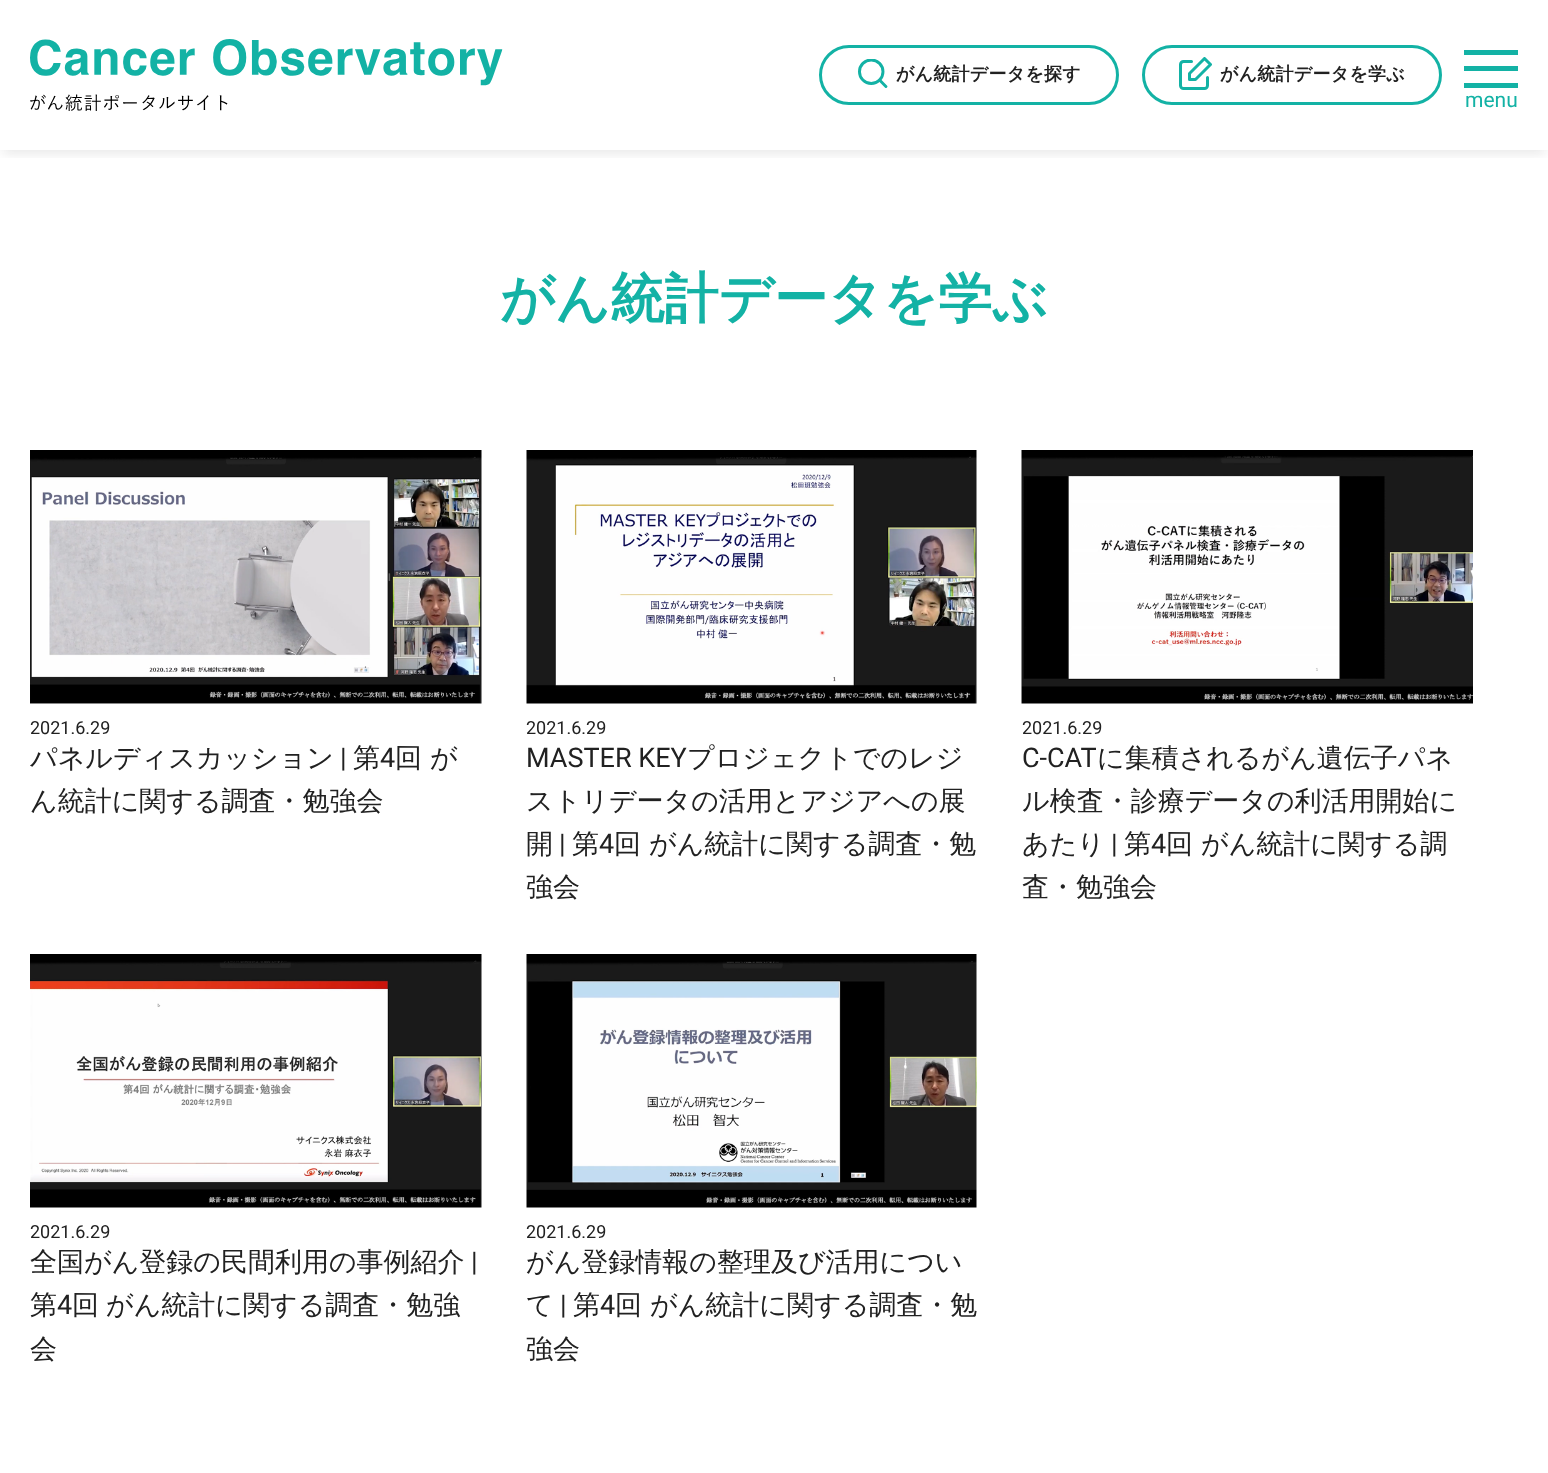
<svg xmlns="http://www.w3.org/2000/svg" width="1548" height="1473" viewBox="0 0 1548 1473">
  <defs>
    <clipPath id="clip1"><path d="M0 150h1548v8H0z"/></clipPath>
  </defs>
  <rect width="100%" height="100%" fill="#fff"/>
  <g clip-path="url(#clip1)">
    <path d="M3 9h1542v144H3z" fill="#0a0a0a1a" filter="blur(6px)"/>
  </g>
  <image x="30" y="39" width="473" height="72" href="img/1.png"/>
  <rect x="820.5" y="46.5" width="297" height="57" rx="28.5" fill="none" stroke="#13b2a5" stroke-width="3"/>
  <image x="858" y="59" width="30" height="29" href="img/2.png"/>
  <rect x="1143.5" y="46.5" width="297" height="57" rx="28.5" fill="none" stroke="#13b2a5" stroke-width="3"/>
  <image x="1179" y="57" width="33" height="33" href="img/3.png"/>
  <path d="M1464 50h54v5H1464z" fill="#13b2a5"/>
  <path d="M1464 66h54v5H1464z" fill="#13b2a5"/>
  <path d="M1464 83h54v5H1464z" fill="#13b2a5"/>
  <image x="30" y="450" width="452" height="254" href="img/4.png"/>
  <image x="526" y="450" width="451" height="254" href="img/5.png"/>
  <image x="1021" y="450" width="452" height="254" href="img/6.png"/>
  <image x="30" y="954" width="452" height="254" href="img/7.png"/>
  <image x="526" y="954" width="451" height="254" href="img/8.png"/>
  <g font-family="WenQuanYi Zen Hei" font-size="18" font-weight="bold" letter-spacing="0.25" fill="#212121">
    <text x="896" y="80">がん統計データを探す</text>
    <text x="1220" y="80">がん統計データを学ぶ</text>
  </g>
  <text x="1465" y="107" font-family="Roboto" font-size="21" fill="#13b2a5">menu</text>
  <text x="500" y="317" font-family="WenQuanYi Zen Hei" font-size="54" font-weight="bold" fill="#13b2a5">がん統計データを学ぶ</text>
  <text x="30" y="734" font-family="Roboto" font-size="18" fill="#212121">2021.6.29</text>
  <text x="30" y="767" font-family="WenQuanYi Zen Hei" font-size="27" font-weight="500" fill="#212121">パネルディスカッション</text>
  <text x="340" y="767" font-family="Roboto" font-size="27" fill="#212121">|</text>
  <text x="353" y="767" font-family="WenQuanYi Zen Hei" font-size="27" font-weight="500" fill="#212121">第</text>
  <text x="380" y="767" font-family="Roboto" font-size="27" fill="#212121">4</text>
  <g font-family="WenQuanYi Zen Hei" font-size="27" font-weight="500" fill="#212121">
    <text x="395" y="767">回 が</text>
    <text x="30" y="810">ん統計に関する調査・勉強会</text>
  </g>
  <text x="526" y="734" font-family="Roboto" font-size="18" fill="#212121">2021.6.29</text>
  <text x="526" y="767" font-family="Roboto" font-size="27" fill="#212121">MASTER KEY</text>
  <g font-family="WenQuanYi Zen Hei" font-size="27" font-weight="500" fill="#212121">
    <text x="687" y="767">プロジェクトでのレジ</text>
    <text x="526" y="810">ストリデータの活用とアジアへの展</text>
    <text x="526" y="853">開</text>
  </g>
  <text x="559" y="853" font-family="Roboto" font-size="27" fill="#212121">|</text>
  <text x="572" y="853" font-family="WenQuanYi Zen Hei" font-size="27" font-weight="500" fill="#212121">第</text>
  <text x="599" y="853" font-family="Roboto" font-size="27" fill="#212121">4</text>
  <g font-family="WenQuanYi Zen Hei" font-size="27" font-weight="500" fill="#212121">
    <text x="614" y="853">回 がん統計に関する調査・勉</text>
    <text x="526" y="896">強会</text>
  </g>
  <text x="1022" y="734" font-family="Roboto" font-size="18" fill="#212121">2021.6.29</text>
  <text x="1022" y="767" font-family="Roboto" font-size="27" fill="#212121">C-CAT</text>
  <g font-family="WenQuanYi Zen Hei" font-size="27" font-weight="500" fill="#212121">
    <text x="1097" y="767">に集積されるがん遺伝子パネ</text>
    <text x="1022" y="810">ル検査・診療データの利活用開始に</text>
    <text x="1022" y="853">あたり</text>
  </g>
  <text x="1111" y="853" font-family="Roboto" font-size="27" fill="#212121">|</text>
  <text x="1124" y="853" font-family="WenQuanYi Zen Hei" font-size="27" font-weight="500" fill="#212121">第</text>
  <text x="1151" y="853" font-family="Roboto" font-size="27" fill="#212121">4</text>
  <g font-family="WenQuanYi Zen Hei" font-size="27" font-weight="500" fill="#212121">
    <text x="1166" y="853">回 がん統計に関する調</text>
    <text x="1022" y="896">査・勉強会</text>
  </g>
  <text x="30" y="1238" font-family="Roboto" font-size="18" fill="#212121">2021.6.29</text>
  <text x="30" y="1271" font-family="WenQuanYi Zen Hei" font-size="27" font-weight="500" fill="#212121">全国がん登録の民間利用の事例紹介</text>
  <text x="471" y="1271" font-family="Roboto" font-size="27" fill="#212121">|</text>
  <text x="30" y="1314" font-family="WenQuanYi Zen Hei" font-size="27" font-weight="500" fill="#212121">第</text>
  <text x="57" y="1314" font-family="Roboto" font-size="27" fill="#212121">4</text>
  <g font-family="WenQuanYi Zen Hei" font-size="27" font-weight="500" fill="#212121">
    <text x="72" y="1314" word-spacing="-1">回 がん統計に関する調査・勉強</text>
    <text x="30" y="1358">会</text>
  </g>
  <text x="526" y="1238" font-family="Roboto" font-size="18" fill="#212121">2021.6.29</text>
  <g font-family="WenQuanYi Zen Hei" font-size="27" font-weight="500" fill="#212121">
    <text x="526" y="1271">がん登録情報の整理及び活用につい</text>
    <text x="526" y="1314">て</text>
  </g>
  <text x="560" y="1314" font-family="Roboto" font-size="27" fill="#212121">|</text>
  <text x="573" y="1314" font-family="WenQuanYi Zen Hei" font-size="27" font-weight="500" fill="#212121">第</text>
  <text x="600" y="1314" font-family="Roboto" font-size="27" fill="#212121">4</text>
  <g font-family="WenQuanYi Zen Hei" font-size="27" font-weight="500" fill="#212121">
    <text x="615" y="1314">回 がん統計に関する調査・勉</text>
    <text x="526" y="1358">強会</text>
  </g>
</svg>
